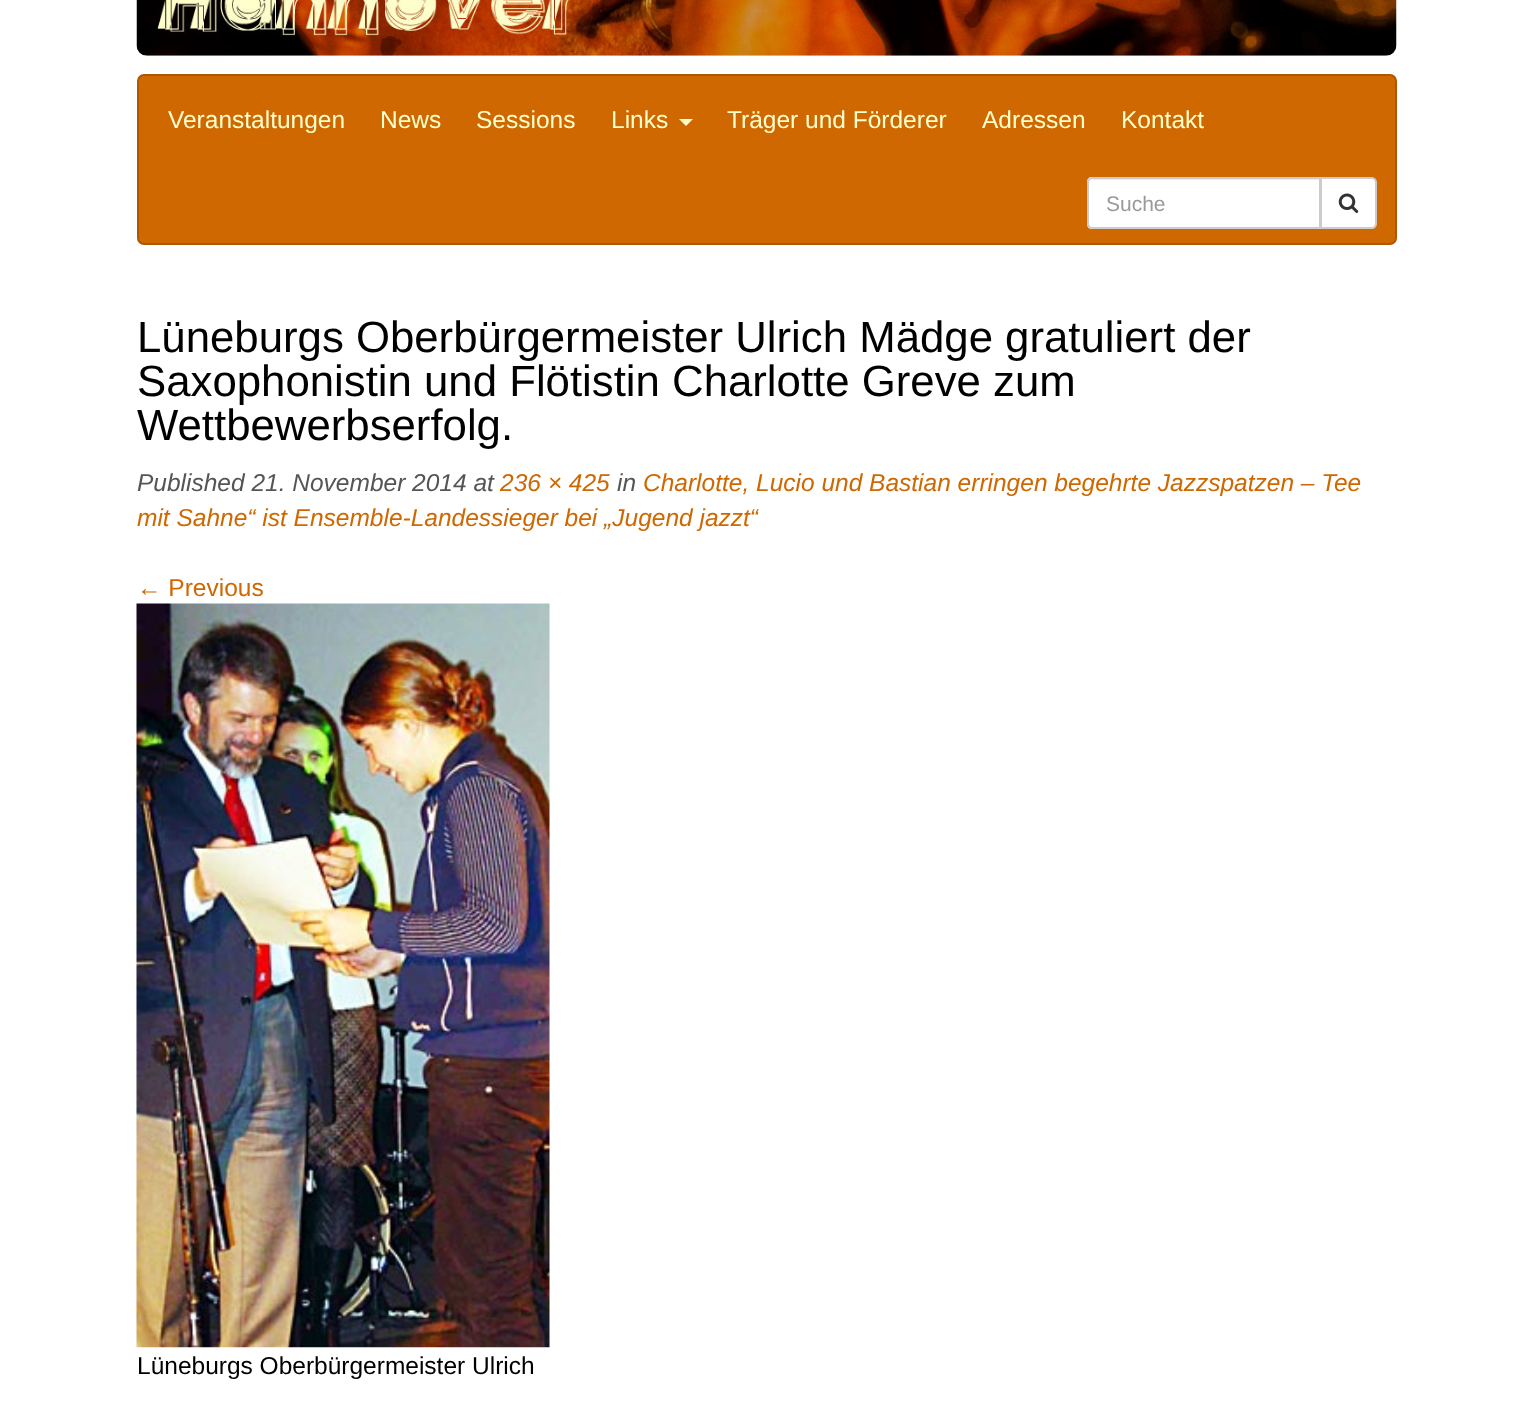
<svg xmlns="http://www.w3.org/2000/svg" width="1532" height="1403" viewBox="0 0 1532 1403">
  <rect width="100%" height="100%" fill="#fff"/>
  <image x="136" y="0" width="1261" height="56" href="img/1.png"/>
  <rect x="138" y="75" width="1258" height="169" rx="6" fill="#cf6800" stroke="#ae5700" stroke-width="2"/>
  <path d="M679 119H693L686 126Z" fill="#ffffcb"/>
  <path d="M1092 177H1321V229H1092C1089 229 1087 227 1087 224V182C1087 179 1089 177 1092 177Z" fill="#fff"/>
  <path d="M1092 180H1320V179H1093L1091 180L1090 181Z" fill="#ececec"/>
  <path d="M1092 178H1320V228H1092C1090 228 1088 226 1088 224V182C1088 180 1090 178 1092 178Z" fill="none" stroke="#ccc" stroke-width="2"/>
  <path d="M1321 178H1372C1374 178 1376 180 1376 182V224C1376 226 1374 228 1372 228H1321Z" fill="#fff" stroke="#ccc" stroke-width="2"/>
  <image x="1338" y="193" width="21" height="20" href="img/2.png"/>
  <image x="136" y="603" width="414" height="745" href="img/3.png"/>
  <g font-family="Liberation Sans" font-size="24.5" fill="#ffffcb">
    <text x="168" y="128">Veranstaltungen</text>
    <text x="380" y="128">News</text>
    <text x="476" y="128">Sessions</text>
    <text x="611" y="128">Links</text>
    <text x="727" y="128">Träger und Förderer</text>
    <text x="982" y="128">Adressen</text>
    <text x="1121" y="128">Kontakt</text>
  </g>
  <text x="1106" y="211" font-family="Liberation Sans" font-size="21" fill="#999">Suche</text>
  <g font-family="Liberation Sans" font-size="43.75" fill="#000">
    <text x="137" y="352">Lüneburgs Oberbürgermeister Ulrich Mädge gratuliert der</text>
    <text x="137" y="396">Saxophonistin und Flötistin Charlotte Greve zum</text>
    <text x="137" y="440">Wettbewerbserfolg.</text>
  </g>
  <text x="137" y="491" font-family="Liberation Sans" font-size="24.5" font-style="italic" fill="#555">Published 21. November 2014 at</text>
  <text x="500" y="491" font-family="Liberation Sans" font-size="24.5" font-style="italic" fill="#cf6800">236 × 425</text>
  <text x="617" y="491" font-family="Liberation Sans" font-size="24.5" font-style="italic" fill="#555">in</text>
  <g font-family="Liberation Sans" font-size="24.5" font-style="italic" fill="#cf6800">
    <text x="643" y="491">Charlotte, Lucio und Bastian erringen begehrte Jazzspatzen – Tee</text>
    <text x="137" y="526">mit Sahne“ ist Ensemble-Landessieger bei „Jugend jazzt“</text>
  </g>
  <text x="137" y="596" font-family="Liberation Sans" font-size="24.5" fill="#cf6800">← Previous</text>
  <text x="137" y="1374" font-family="Liberation Sans" font-size="24.5" fill="#000">Lüneburgs Oberbürgermeister Ulrich</text>
</svg>
